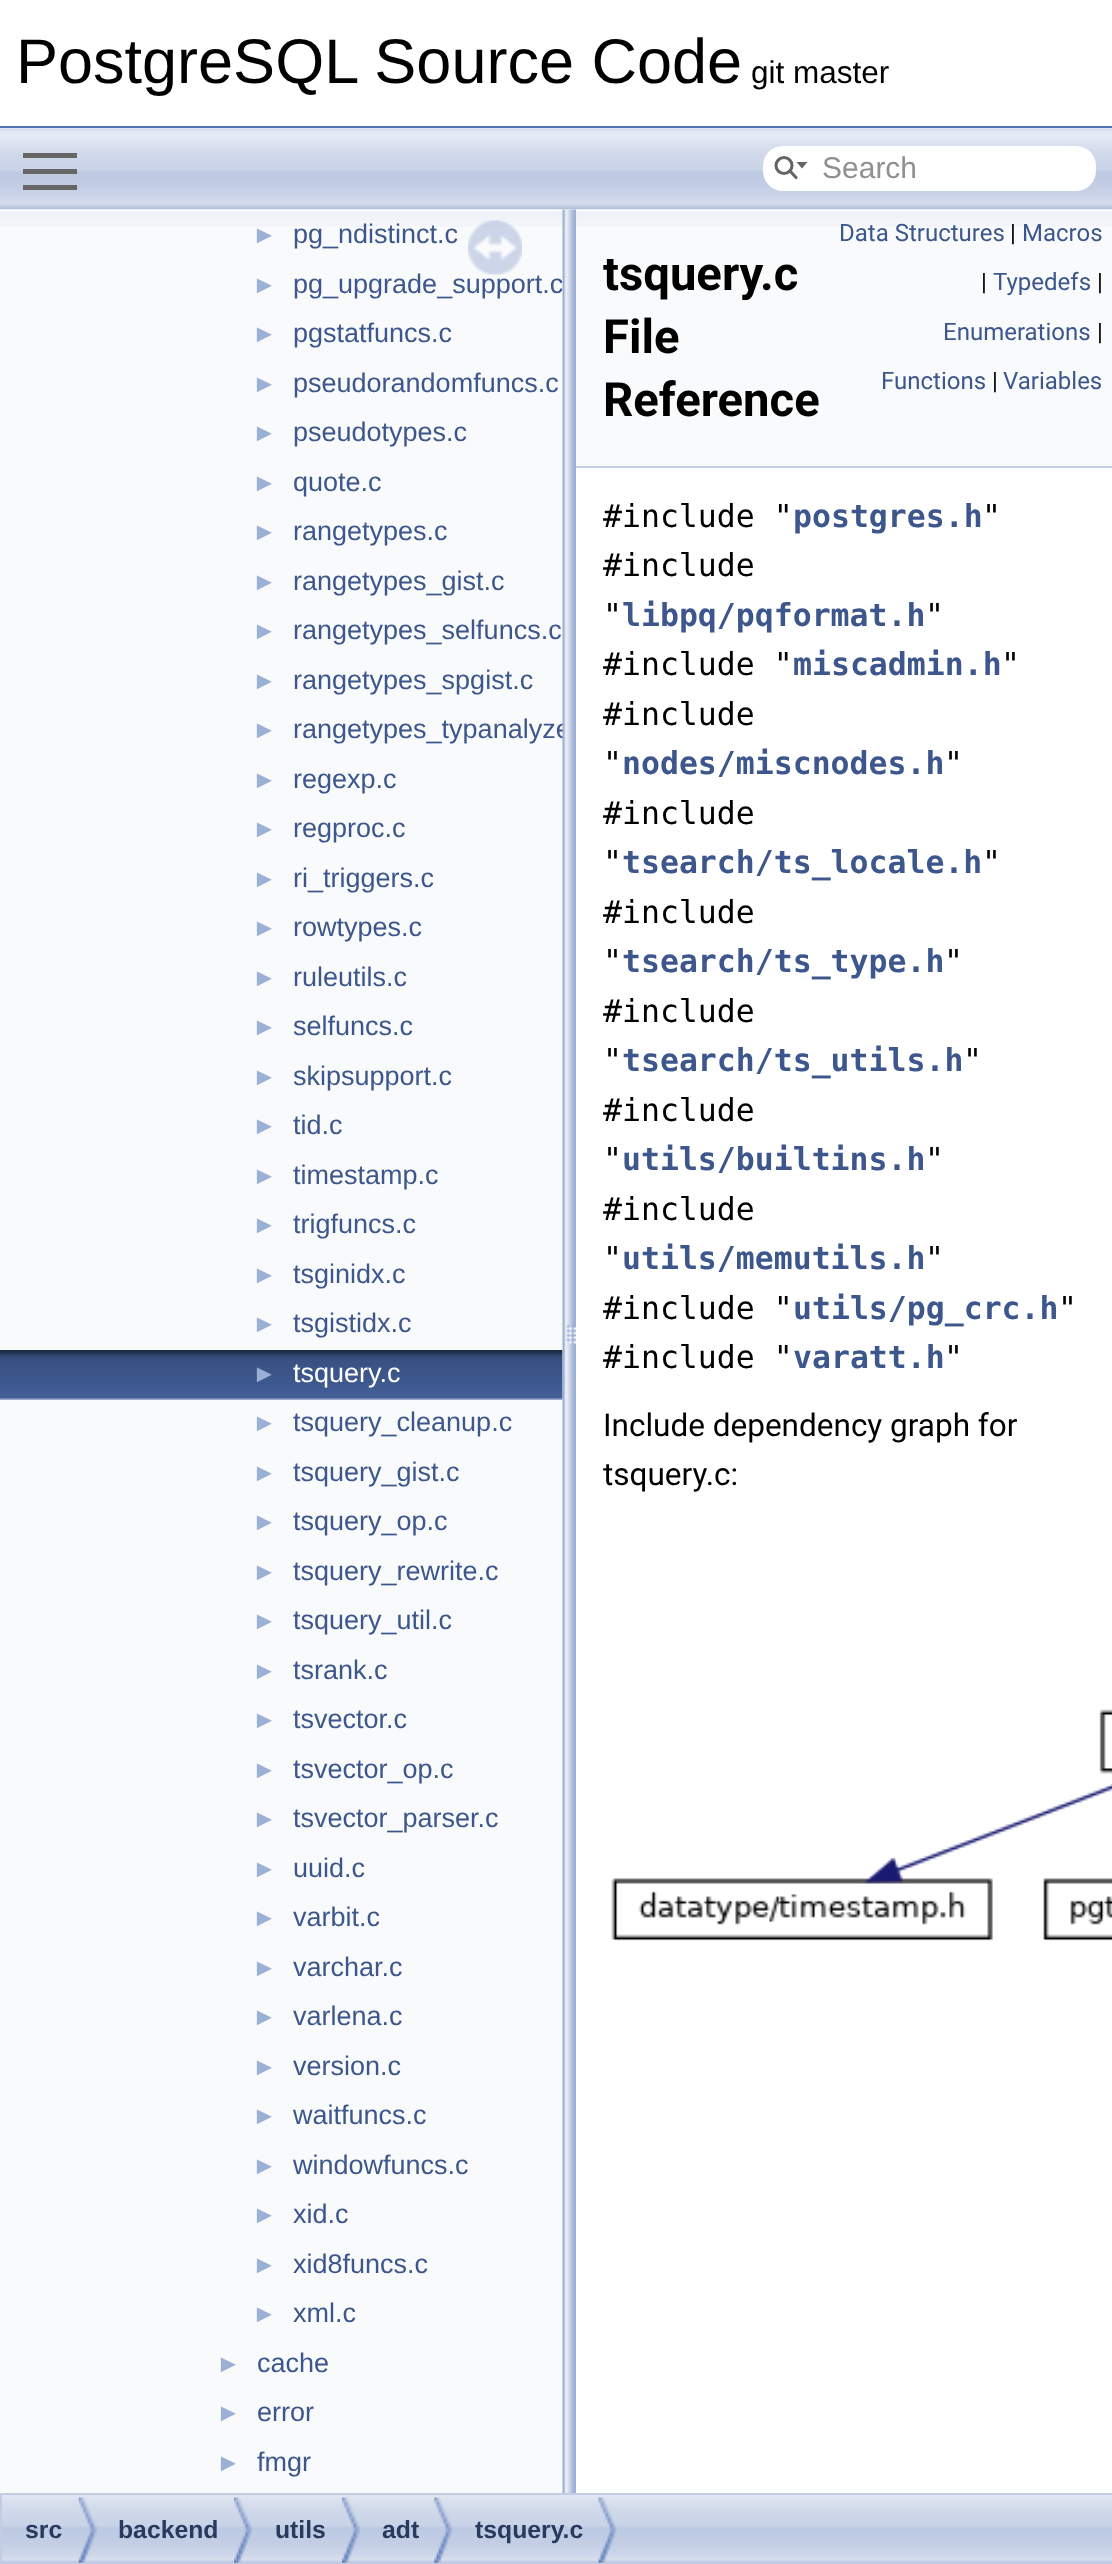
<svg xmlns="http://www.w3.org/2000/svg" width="1112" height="2564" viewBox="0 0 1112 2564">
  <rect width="100%" height="100%" fill="#fff"/>
  <path d="M0 126h1112v2H0z" fill="#5373b4"/>
  <path d="M0 209h563v2284H0z" fill="#f9fafc"/>
  <image x="0" y="210" width="563" height="17" href="img/2.png"/>
  <image x="0" y="1350" width="563" height="50" href="img/4.png"/>
  <path d="M576 209h536v257H576z" fill="#f9fafc"/>
  <image x="576" y="210" width="536" height="17" href="img/6.png"/>
  <path d="M576 466h536v2H576z" fill="#c4cfe5"/>
  <image x="611" y="1709" width="501" height="232" href="img/7.png"/>
  <image x="2" y="2495" width="1110" height="68" href="img/8.png"/>
  <path d="M1 2494h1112v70H1z" fill="none" stroke="#c2cde4" stroke-width="2"/>
  <image x="78" y="2497" width="19" height="66" href="img/9.png"/>
  <image x="234" y="2497" width="18" height="66" href="img/10.png"/>
  <image x="342" y="2497" width="18" height="66" href="img/10.png"/>
  <image x="434" y="2497" width="19" height="66" href="img/11.png"/>
  <image x="598" y="2497" width="19" height="66" href="img/12.png"/>
  <text x="16" y="83" font-family="Liberation Sans" font-size="63" fill="#000">PostgreSQL Source Code</text>
  <text x="751" y="83" font-family="Liberation Sans" font-size="31.5" fill="#000">git master</text>
  <text x="252" y="243" font-family="Liberation Sans" font-size="25" fill="#9cafd4">►</text>
  <text x="293" y="243" font-family="Liberation Sans" font-size="27" fill="#3d578c">pg_ndistinct.c</text>
  <text x="252" y="293" font-family="Liberation Sans" font-size="25" fill="#9cafd4">►</text>
  <text x="293" y="293" font-family="Liberation Sans" font-size="27" fill="#3d578c">pg_upgrade_support.c</text>
  <image x="468" y="220" width="54" height="55" href="img/3.png"/>
  <text x="252" y="342" font-family="Liberation Sans" font-size="25" fill="#9cafd4">►</text>
  <text x="293" y="342" font-family="Liberation Sans" font-size="27" fill="#3d578c">pgstatfuncs.c</text>
  <text x="252" y="392" font-family="Liberation Sans" font-size="25" fill="#9cafd4">►</text>
  <text x="293" y="392" font-family="Liberation Sans" font-size="27" fill="#3d578c">pseudorandomfuncs.c</text>
  <text x="252" y="441" font-family="Liberation Sans" font-size="25" fill="#9cafd4">►</text>
  <text x="293" y="441" font-family="Liberation Sans" font-size="27" fill="#3d578c">pseudotypes.c</text>
  <text x="252" y="491" font-family="Liberation Sans" font-size="25" fill="#9cafd4">►</text>
  <text x="293" y="491" font-family="Liberation Sans" font-size="27" fill="#3d578c">quote.c</text>
  <text x="252" y="540" font-family="Liberation Sans" font-size="25" fill="#9cafd4">►</text>
  <text x="293" y="540" font-family="Liberation Sans" font-size="27" fill="#3d578c">rangetypes.c</text>
  <text x="252" y="590" font-family="Liberation Sans" font-size="25" fill="#9cafd4">►</text>
  <text x="293" y="590" font-family="Liberation Sans" font-size="27" fill="#3d578c">rangetypes_gist.c</text>
  <text x="252" y="639" font-family="Liberation Sans" font-size="25" fill="#9cafd4">►</text>
  <text x="293" y="639" font-family="Liberation Sans" font-size="27" fill="#3d578c">rangetypes_selfuncs.c</text>
  <text x="252" y="689" font-family="Liberation Sans" font-size="25" fill="#9cafd4">►</text>
  <text x="293" y="689" font-family="Liberation Sans" font-size="27" fill="#3d578c">rangetypes_spgist.c</text>
  <text x="252" y="738" font-family="Liberation Sans" font-size="25" fill="#9cafd4">►</text>
  <text x="293" y="738" font-family="Liberation Sans" font-size="27" fill="#3d578c">rangetypes_typanalyze</text>
  <text x="252" y="788" font-family="Liberation Sans" font-size="25" fill="#9cafd4">►</text>
  <text x="293" y="788" font-family="Liberation Sans" font-size="27" fill="#3d578c">regexp.c</text>
  <text x="252" y="837" font-family="Liberation Sans" font-size="25" fill="#9cafd4">►</text>
  <text x="293" y="837" font-family="Liberation Sans" font-size="27" fill="#3d578c">regproc.c</text>
  <text x="252" y="887" font-family="Liberation Sans" font-size="25" fill="#9cafd4">►</text>
  <text x="293" y="887" font-family="Liberation Sans" font-size="27" fill="#3d578c">ri_triggers.c</text>
  <text x="252" y="936" font-family="Liberation Sans" font-size="25" fill="#9cafd4">►</text>
  <text x="293" y="936" font-family="Liberation Sans" font-size="27" fill="#3d578c">rowtypes.c</text>
  <text x="252" y="986" font-family="Liberation Sans" font-size="25" fill="#9cafd4">►</text>
  <text x="293" y="986" font-family="Liberation Sans" font-size="27" fill="#3d578c">ruleutils.c</text>
  <text x="252" y="1035" font-family="Liberation Sans" font-size="25" fill="#9cafd4">►</text>
  <text x="293" y="1035" font-family="Liberation Sans" font-size="27" fill="#3d578c">selfuncs.c</text>
  <text x="252" y="1085" font-family="Liberation Sans" font-size="25" fill="#9cafd4">►</text>
  <text x="293" y="1085" font-family="Liberation Sans" font-size="27" fill="#3d578c">skipsupport.c</text>
  <text x="252" y="1134" font-family="Liberation Sans" font-size="25" fill="#9cafd4">►</text>
  <text x="293" y="1134" font-family="Liberation Sans" font-size="27" fill="#3d578c">tid.c</text>
  <text x="252" y="1184" font-family="Liberation Sans" font-size="25" fill="#9cafd4">►</text>
  <text x="293" y="1184" font-family="Liberation Sans" font-size="27" fill="#3d578c">timestamp.c</text>
  <text x="252" y="1233" font-family="Liberation Sans" font-size="25" fill="#9cafd4">►</text>
  <text x="293" y="1233" font-family="Liberation Sans" font-size="27" fill="#3d578c">trigfuncs.c</text>
  <text x="252" y="1283" font-family="Liberation Sans" font-size="25" fill="#9cafd4">►</text>
  <text x="293" y="1283" font-family="Liberation Sans" font-size="27" fill="#3d578c">tsginidx.c</text>
  <text x="252" y="1332" font-family="Liberation Sans" font-size="25" fill="#9cafd4">►</text>
  <text x="293" y="1332" font-family="Liberation Sans" font-size="27" fill="#3d578c">tsgistidx.c</text>
  <text x="252" y="1382" font-family="Liberation Sans" font-size="25" fill="#9cafd4">►</text>
  <text x="293" y="1382" font-family="Liberation Sans" font-size="27" fill="#fff">tsquery.c</text>
  <text x="252" y="1431" font-family="Liberation Sans" font-size="25" fill="#9cafd4">►</text>
  <text x="293" y="1431" font-family="Liberation Sans" font-size="27" fill="#3d578c">tsquery_cleanup.c</text>
  <text x="252" y="1481" font-family="Liberation Sans" font-size="25" fill="#9cafd4">►</text>
  <text x="293" y="1481" font-family="Liberation Sans" font-size="27" fill="#3d578c">tsquery_gist.c</text>
  <text x="252" y="1530" font-family="Liberation Sans" font-size="25" fill="#9cafd4">►</text>
  <text x="293" y="1530" font-family="Liberation Sans" font-size="27" fill="#3d578c">tsquery_op.c</text>
  <text x="252" y="1580" font-family="Liberation Sans" font-size="25" fill="#9cafd4">►</text>
  <text x="293" y="1580" font-family="Liberation Sans" font-size="27" fill="#3d578c">tsquery_rewrite.c</text>
  <text x="252" y="1629" font-family="Liberation Sans" font-size="25" fill="#9cafd4">►</text>
  <text x="293" y="1629" font-family="Liberation Sans" font-size="27" fill="#3d578c">tsquery_util.c</text>
  <text x="252" y="1679" font-family="Liberation Sans" font-size="25" fill="#9cafd4">►</text>
  <text x="293" y="1679" font-family="Liberation Sans" font-size="27" fill="#3d578c">tsrank.c</text>
  <text x="252" y="1728" font-family="Liberation Sans" font-size="25" fill="#9cafd4">►</text>
  <text x="293" y="1728" font-family="Liberation Sans" font-size="27" fill="#3d578c">tsvector.c</text>
  <text x="252" y="1778" font-family="Liberation Sans" font-size="25" fill="#9cafd4">►</text>
  <text x="293" y="1778" font-family="Liberation Sans" font-size="27" fill="#3d578c">tsvector_op.c</text>
  <text x="252" y="1827" font-family="Liberation Sans" font-size="25" fill="#9cafd4">►</text>
  <text x="293" y="1827" font-family="Liberation Sans" font-size="27" fill="#3d578c">tsvector_parser.c</text>
  <text x="252" y="1877" font-family="Liberation Sans" font-size="25" fill="#9cafd4">►</text>
  <text x="293" y="1877" font-family="Liberation Sans" font-size="27" fill="#3d578c">uuid.c</text>
  <text x="252" y="1926" font-family="Liberation Sans" font-size="25" fill="#9cafd4">►</text>
  <text x="293" y="1926" font-family="Liberation Sans" font-size="27" fill="#3d578c">varbit.c</text>
  <text x="252" y="1976" font-family="Liberation Sans" font-size="25" fill="#9cafd4">►</text>
  <text x="293" y="1976" font-family="Liberation Sans" font-size="27" fill="#3d578c">varchar.c</text>
  <text x="252" y="2025" font-family="Liberation Sans" font-size="25" fill="#9cafd4">►</text>
  <text x="293" y="2025" font-family="Liberation Sans" font-size="27" fill="#3d578c">varlena.c</text>
  <text x="252" y="2075" font-family="Liberation Sans" font-size="25" fill="#9cafd4">►</text>
  <text x="293" y="2075" font-family="Liberation Sans" font-size="27" fill="#3d578c">version.c</text>
  <text x="252" y="2124" font-family="Liberation Sans" font-size="25" fill="#9cafd4">►</text>
  <text x="293" y="2124" font-family="Liberation Sans" font-size="27" fill="#3d578c">waitfuncs.c</text>
  <text x="252" y="2174" font-family="Liberation Sans" font-size="25" fill="#9cafd4">►</text>
  <text x="293" y="2174" font-family="Liberation Sans" font-size="27" fill="#3d578c">windowfuncs.c</text>
  <text x="252" y="2223" font-family="Liberation Sans" font-size="25" fill="#9cafd4">►</text>
  <text x="293" y="2223" font-family="Liberation Sans" font-size="27" fill="#3d578c">xid.c</text>
  <text x="252" y="2273" font-family="Liberation Sans" font-size="25" fill="#9cafd4">►</text>
  <text x="293" y="2273" font-family="Liberation Sans" font-size="27" fill="#3d578c">xid8funcs.c</text>
  <text x="252" y="2322" font-family="Liberation Sans" font-size="25" fill="#9cafd4">►</text>
  <text x="293" y="2322" font-family="Liberation Sans" font-size="27" fill="#3d578c">xml.c</text>
  <text x="216" y="2372" font-family="Liberation Sans" font-size="25" fill="#9cafd4">►</text>
  <text x="257" y="2372" font-family="Liberation Sans" font-size="27" fill="#3d578c">cache</text>
  <text x="216" y="2421" font-family="Liberation Sans" font-size="25" fill="#9cafd4">►</text>
  <text x="257" y="2421" font-family="Liberation Sans" font-size="27" fill="#3d578c">error</text>
  <text x="216" y="2471" font-family="Liberation Sans" font-size="25" fill="#9cafd4">►</text>
  <text x="257" y="2471" font-family="Liberation Sans" font-size="27" fill="#3d578c">fmgr</text>
  <image x="562" y="209" width="14" height="2284" href="img/5.png"/>
  <image x="0" y="128" width="1112" height="82" href="img/1.png"/>
  <rect x="763" y="146" width="333" height="45" rx="20" fill="#fff"/>
  <text x="822" y="178" font-family="Liberation Sans" font-size="30" fill="#909090">Search</text>
  <circle cx="784" cy="165.5" r="8" fill="none" stroke="#656565" stroke-width="3.1"/>
  <path d="M790 171L796 177.5" fill="none" stroke="#656565" stroke-width="3.1" stroke-linecap="round"/>
  <path d="M796.5 162L802 168.5L807.5 162Z" fill="#656565"/>
  <path d="M23 185h54v5H23z" fill="#666"/>
  <path d="M23 153h54v5H23z" fill="#666"/>
  <path d="M23 169h54v5H23z" fill="#666"/>
  <g font-family="Roboto" font-size="47.25" font-weight="bold" fill="#000">
    <text x="603" y="290">tsquery.c</text>
    <text x="603" y="353">File</text>
    <text x="603" y="416">Reference</text>
  </g>
  <text x="839" y="241" font-family="Roboto" font-size="24" fill="#3d578c">Data Structures</text>
  <text x="1010" y="241" font-family="Roboto" font-size="24" fill="#000">|</text>
  <text x="1022" y="241" font-family="Roboto" font-size="24" fill="#3d578c">Macros</text>
  <text x="981" y="290" font-family="Roboto" font-size="24" fill="#000">|</text>
  <text x="993" y="290" font-family="Roboto" font-size="24" fill="#3d578c">Typedefs</text>
  <text x="1097" y="290" font-family="Roboto" font-size="24" fill="#000">|</text>
  <text x="943" y="340" font-family="Roboto" font-size="24" fill="#3d578c">Enumerations</text>
  <text x="1097" y="340" font-family="Roboto" font-size="24" fill="#000">|</text>
  <text x="881" y="389" font-family="Roboto" font-size="24" fill="#3d578c">Functions</text>
  <text x="992" y="389" font-family="Roboto" font-size="24" fill="#000">|</text>
  <text x="1003" y="389" font-family="Roboto" font-size="24" fill="#3d578c">Variables</text>
  <text x="603" y="527" font-family="DejaVu Sans Mono" font-size="31.5" fill="#000">#include "</text>
  <text x="793" y="527" font-family="DejaVu Sans Mono" font-size="31.5" font-weight="bold" fill="#3d578c">postgres.h</text>
  <g font-family="DejaVu Sans Mono" font-size="31.5" fill="#000">
    <text x="982" y="527">"</text>
    <text x="603" y="576">#include</text>
    <text x="603" y="626">"</text>
  </g>
  <text x="622" y="626" font-family="DejaVu Sans Mono" font-size="31.5" font-weight="bold" fill="#3d578c">libpq/pqformat.h</text>
  <g font-family="DejaVu Sans Mono" font-size="31.5" fill="#000">
    <text x="925" y="626">"</text>
    <text x="603" y="675">#include "</text>
  </g>
  <text x="793" y="675" font-family="DejaVu Sans Mono" font-size="31.5" font-weight="bold" fill="#3d578c">miscadmin.h</text>
  <g font-family="DejaVu Sans Mono" font-size="31.5" fill="#000">
    <text x="1001" y="675">"</text>
    <text x="603" y="725">#include</text>
    <text x="603" y="774">"</text>
  </g>
  <text x="622" y="774" font-family="DejaVu Sans Mono" font-size="31.5" font-weight="bold" fill="#3d578c">nodes/miscnodes.h</text>
  <g font-family="DejaVu Sans Mono" font-size="31.5" fill="#000">
    <text x="944" y="774">"</text>
    <text x="603" y="824">#include</text>
    <text x="603" y="873">"</text>
  </g>
  <text x="622" y="873" font-family="DejaVu Sans Mono" font-size="31.5" font-weight="bold" fill="#3d578c">tsearch/ts_locale.h</text>
  <g font-family="DejaVu Sans Mono" font-size="31.5" fill="#000">
    <text x="982" y="873">"</text>
    <text x="603" y="923">#include</text>
    <text x="603" y="972">"</text>
  </g>
  <text x="622" y="972" font-family="DejaVu Sans Mono" font-size="31.5" font-weight="bold" fill="#3d578c">tsearch/ts_type.h</text>
  <g font-family="DejaVu Sans Mono" font-size="31.5" fill="#000">
    <text x="944" y="972">"</text>
    <text x="603" y="1022">#include</text>
    <text x="603" y="1071">"</text>
  </g>
  <text x="622" y="1071" font-family="DejaVu Sans Mono" font-size="31.5" font-weight="bold" fill="#3d578c">tsearch/ts_utils.h</text>
  <g font-family="DejaVu Sans Mono" font-size="31.5" fill="#000">
    <text x="963" y="1071">"</text>
    <text x="603" y="1121">#include</text>
    <text x="603" y="1170">"</text>
  </g>
  <text x="622" y="1170" font-family="DejaVu Sans Mono" font-size="31.5" font-weight="bold" fill="#3d578c">utils/builtins.h</text>
  <g font-family="DejaVu Sans Mono" font-size="31.5" fill="#000">
    <text x="925" y="1170">"</text>
    <text x="603" y="1220">#include</text>
    <text x="603" y="1269">"</text>
  </g>
  <text x="622" y="1269" font-family="DejaVu Sans Mono" font-size="31.5" font-weight="bold" fill="#3d578c">utils/memutils.h</text>
  <g font-family="DejaVu Sans Mono" font-size="31.5" fill="#000">
    <text x="925" y="1269">"</text>
    <text x="603" y="1319">#include "</text>
  </g>
  <text x="793" y="1319" font-family="DejaVu Sans Mono" font-size="31.5" font-weight="bold" fill="#3d578c">utils/pg_crc.h</text>
  <g font-family="DejaVu Sans Mono" font-size="31.5" fill="#000">
    <text x="1058" y="1319">"</text>
    <text x="603" y="1368">#include "</text>
  </g>
  <text x="793" y="1368" font-family="DejaVu Sans Mono" font-size="31.5" font-weight="bold" fill="#3d578c">varatt.h</text>
  <text x="944" y="1368" font-family="DejaVu Sans Mono" font-size="31.5" fill="#000">"</text>
  <g font-family="Roboto" font-size="31.5" fill="#000">
    <text x="603" y="1436">Include dependency graph for</text>
    <text x="603" y="1485">tsquery.c:</text>
  </g>
  <g font-family="Liberation Sans" font-size="24.75" font-weight="bold" fill="#283a5d">
    <text x="25" y="2538">src</text>
    <text x="118" y="2538">backend</text>
    <text x="275" y="2538">utils</text>
    <text x="382" y="2538">adt</text>
    <text x="475" y="2538">tsquery.c</text>
  </g>
</svg>
